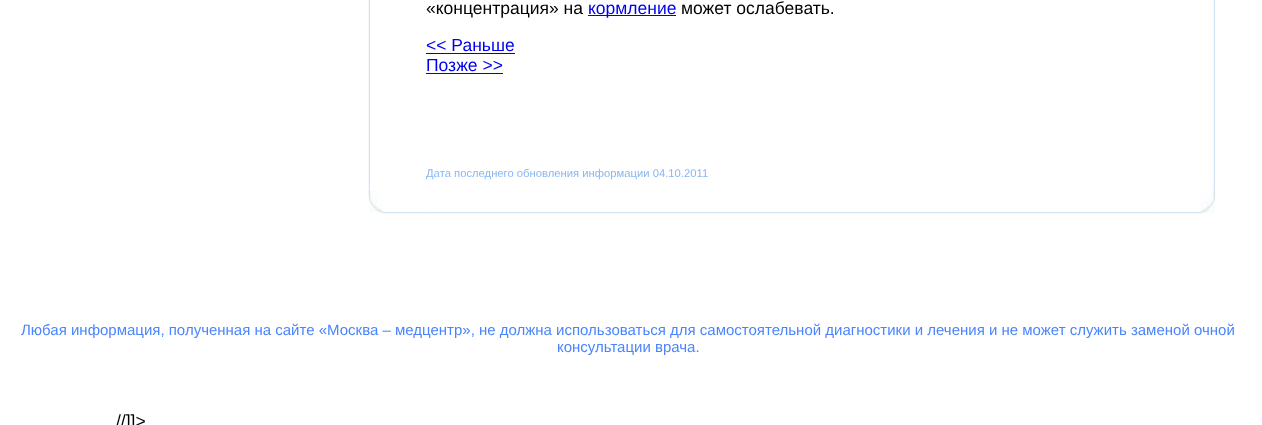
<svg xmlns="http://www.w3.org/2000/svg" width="1262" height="425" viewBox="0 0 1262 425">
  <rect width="100%" height="100%" fill="#fff"/>
  <image x="368" y="0" width="2" height="191" href="img/1.png"/>
  <path d="M588 15h88v1H588z" fill="#00e"/>
  <path d="M426 53h89v1H426z" fill="#00e"/>
  <path d="M426 73h77v1H426z" fill="#00e"/>
  <image x="1213" y="0" width="2" height="191" href="img/2.png"/>
  <image x="382" y="212" width="45" height="2" href="img/4.png"/>
  <image x="368" y="190" width="15" height="24" href="img/3.png"/>
  <image x="426" y="212" width="732" height="2" href="img/5.png"/>
  <image x="1157" y="212" width="45" height="2" href="img/6.png"/>
  <image x="1201" y="190" width="14" height="24" href="img/7.png"/>
  <text x="426" y="14" font-family="Liberation Sans" font-size="17.5" fill="#000">«концентрация» на</text>
  <text x="588" y="14" font-family="Liberation Sans" font-size="17.5" fill="#00e">кормление</text>
  <text x="681" y="14" font-family="Liberation Sans" font-size="17.5" fill="#000">может ослабевать.</text>
  <g font-family="Liberation Sans" font-size="17.5" fill="#00e">
    <text x="426" y="51">&lt;&lt; Раньше</text>
    <text x="426" y="71">Позже &gt;&gt;</text>
  </g>
  <text x="426" y="177" font-family="Liberation Sans" font-size="11.25" fill="#88b7f0">Дата последнего обновления информации 04.10.2011</text>
  <g font-family="Liberation Sans" font-size="15" fill="#4a85ff">
    <text x="21" y="335">Любая информация, полученная на сайте «Москва – медцентр», не должна использоваться для самостоятельной диагностики и лечения и не может служить заменой очной</text>
    <text x="557" y="352">консультации врача.</text>
  </g>
  <text x="116" y="427" font-family="Liberation Sans" font-size="17.5" fill="#000">//]]&gt;</text>
</svg>
